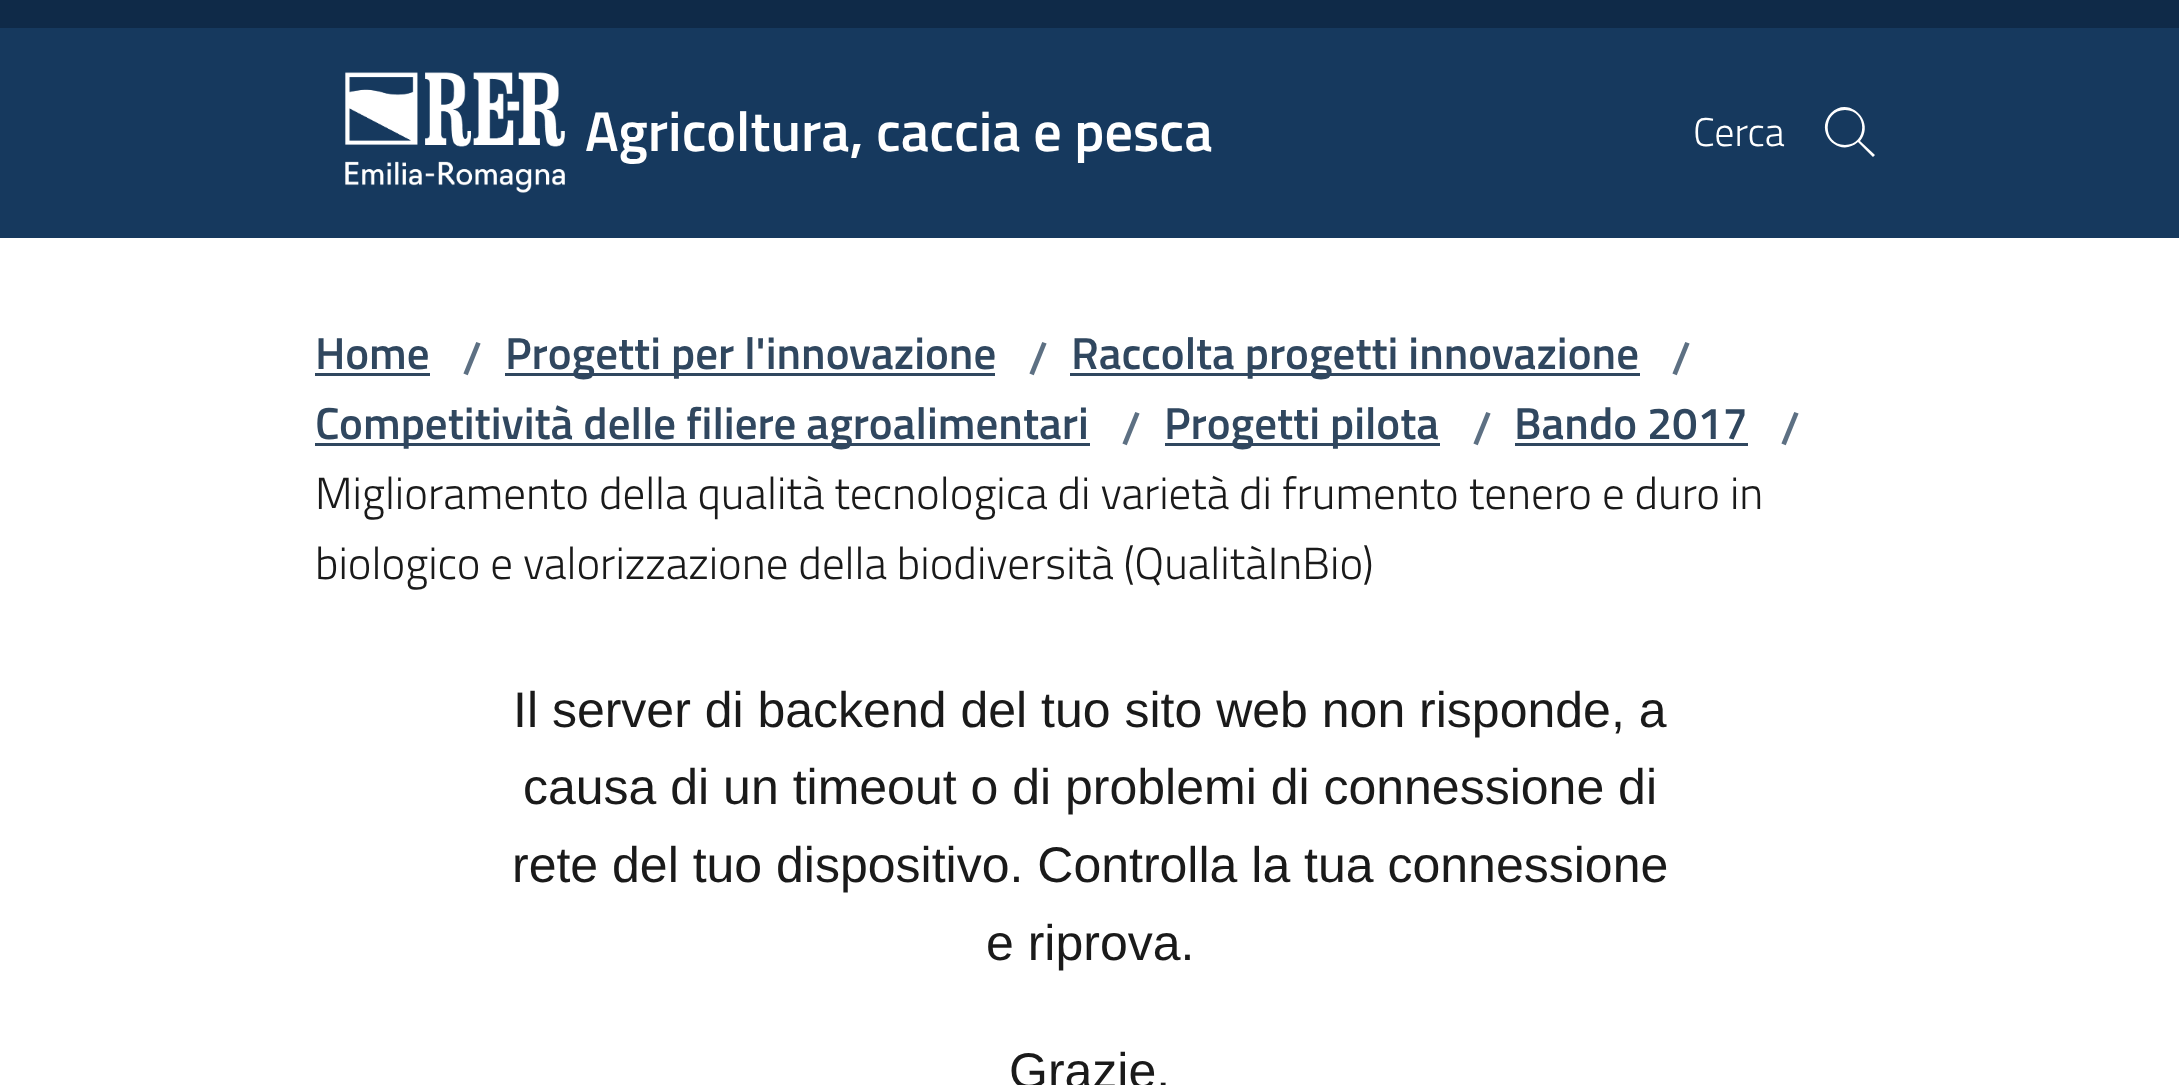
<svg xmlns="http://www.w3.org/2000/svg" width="2179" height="1085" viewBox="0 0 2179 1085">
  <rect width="100%" height="100%" fill="#fff"/>
  <path d="M0 0h2179v28H0z" fill="#0f2a48"/>
  <path d="M0 28h2179v210H0z" fill="#16395e"/>
  <image x="345" y="72" width="220" height="121" href="img/1.png"/>
  <path d="M1875 155L1860 141C1876 122 1849 95 1831 113C1813 132 1839 159 1858 142L1873 157ZM1845 145C1822 145 1822 110 1845 110C1868 110 1868 145 1845 145Z" fill="#fff"/>
  <path d="M315 373h115v3H315z" fill="#30475f"/>
  <path d="M505 373h490v3H505z" fill="#30475f"/>
  <path d="M1070 373h570v3H1070z" fill="#30475f"/>
  <path d="M315 443h775v3H315z" fill="#30475f"/>
  <path d="M1165 443h275v3H1165z" fill="#30475f"/>
  <path d="M1515 443h233v3H1515z" fill="#30475f"/>
  <text x="585" y="151" font-family="Titillium Web" font-size="56.25" font-weight="600" fill="#fff">Agricoltura, caccia e pesca</text>
  <text x="1693" y="146" font-family="Titillium Web" font-size="40" font-weight="300" fill="#fff">Cerca</text>
  <text x="315" y="369" font-family="Titillium Web" font-size="45" font-weight="600" fill="#30475f">Home</text>
  <text x="462" y="374" font-family="Titillium Web" font-size="45" font-weight="600" fill="#5d7083">/</text>
  <text x="505" y="369" font-family="Titillium Web" font-size="45" font-weight="600" fill="#30475f">Progetti per l'innovazione</text>
  <text x="1028" y="374" font-family="Titillium Web" font-size="45" font-weight="600" fill="#5d7083">/</text>
  <text x="1071" y="369" font-family="Titillium Web" font-size="45" font-weight="600" fill="#30475f">Raccolta progetti innovazione</text>
  <text x="1671" y="374" font-family="Titillium Web" font-size="45" font-weight="600" fill="#5d7083">/</text>
  <text x="315" y="439" font-family="Titillium Web" font-size="45" font-weight="600" fill="#30475f">Competitività delle filiere agroalimentari</text>
  <text x="1121" y="444" font-family="Titillium Web" font-size="45" font-weight="600" fill="#5d7083">/</text>
  <text x="1164" y="439" font-family="Titillium Web" font-size="45" font-weight="600" fill="#30475f">Progetti pilota</text>
  <text x="1472" y="444" font-family="Titillium Web" font-size="45" font-weight="600" fill="#5d7083">/</text>
  <text x="1514" y="439" font-family="Titillium Web" font-size="45" font-weight="600" fill="#30475f">Bando 2017</text>
  <text x="1780" y="444" font-family="Titillium Web" font-size="45" font-weight="600" fill="#5d7083">/</text>
  <g font-family="Titillium Web" font-size="45" font-weight="300" fill="#1a1a1a">
    <text x="315" y="509">Miglioramento della qualità tecnologica di varietà di frumento tenero e duro in</text>
    <text x="315" y="579">biologico e valorizzazione della biodiversità (QualitàInBio)</text>
  </g>
  <g font-family="Liberation Sans" font-size="50" fill="#1a1a1a">
    <text x="513" y="727">Il server di backend del tuo sito web non risponde, a</text>
    <text x="523" y="804">causa di un timeout o di problemi di connessione di</text>
    <text x="512" y="882">rete del tuo dispositivo. Controlla la tua connessione</text>
    <text x="986" y="960">e riprova.</text>
    <text x="1009" y="1088">Grazie.</text>
  </g>
</svg>
